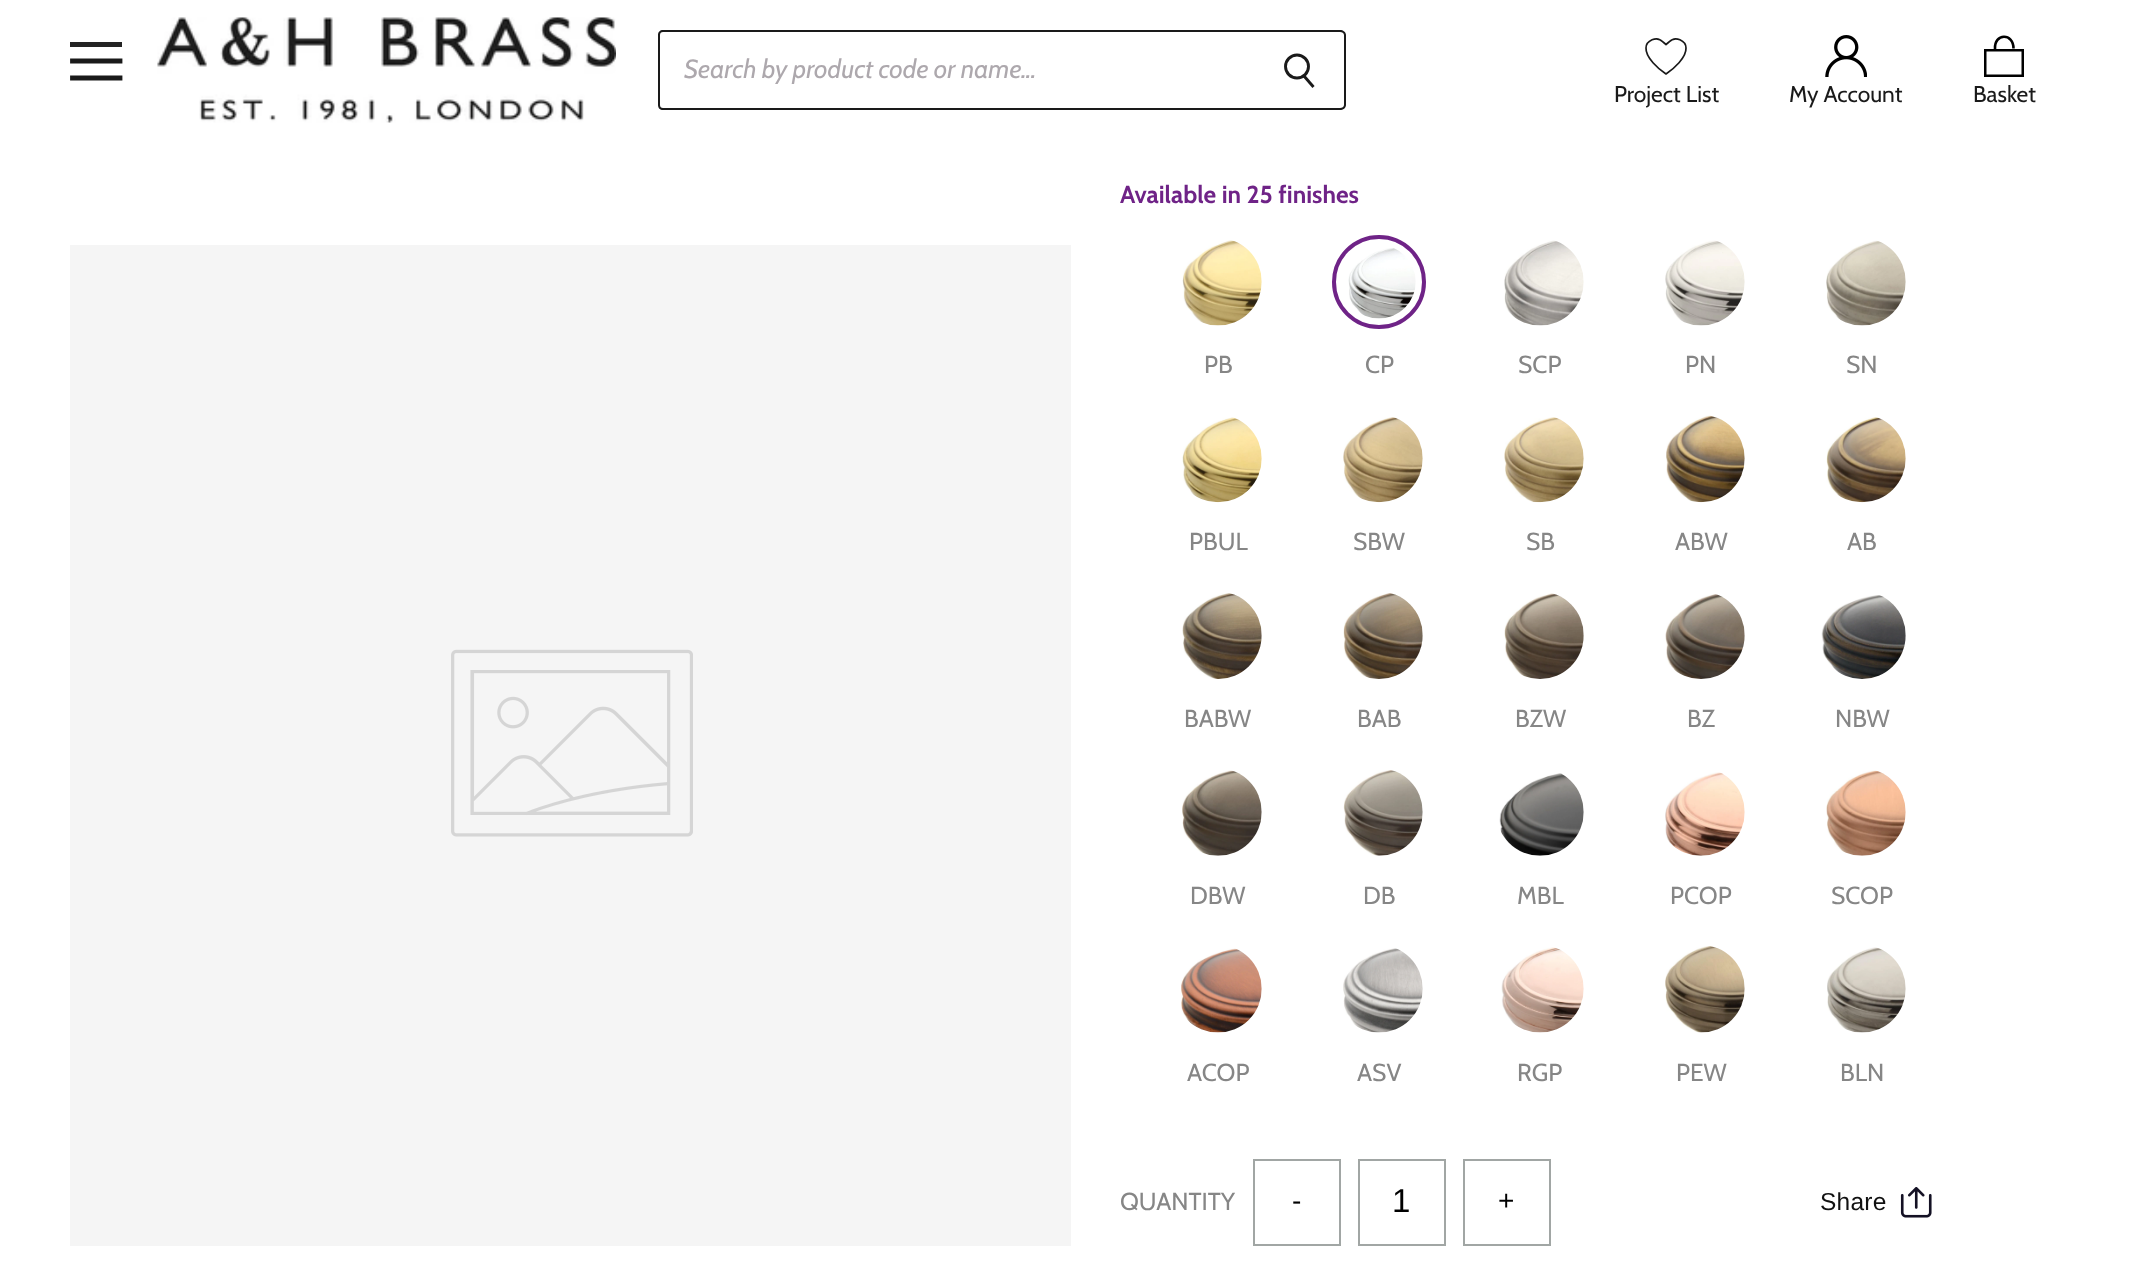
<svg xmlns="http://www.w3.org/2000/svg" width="2139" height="1262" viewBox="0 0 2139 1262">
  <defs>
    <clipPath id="clip1"><path d="M684 53h538v31H684z"/></clipPath>
  </defs>
  <rect width="100%" height="100%" fill="#fff"/>
  <path d="M70 42h52v5H70z" fill="#232323"/>
  <path d="M120 61H72.5M120 78H72.5" fill="none" stroke="#1a1a1a" stroke-width="4.8" stroke-linecap="square" stroke-linejoin="round"/>
  <image x="157" y="17" width="459" height="106" href="img/1.png"/>
  <path d="M663 30H1253V110H663C660 110 658 108 658 105V35C658 32 660 30 663 30ZM663 32H1253V108H663C661 108 660 107 660 105V35C660 33 661 32 663 32Z" fill="#1a1a1a" fill-rule="evenodd"/>
  <path d="M1253 30H1340C1343 30 1346 32 1346 35V105C1346 108 1343 110 1340 110H1253ZM1253 32H1340C1342 32 1344 33 1344 35V105C1344 107 1342 108 1340 108H1253Z" fill="#1a1a1a" fill-rule="evenodd"/>
  <path d="M1313.5 87L1304 76" fill="none" stroke="#1a1a1a" stroke-width="2.9"/>
  <circle cx="1297" cy="66.5" r="11.5" fill="none" stroke="#1a1a1a" stroke-width="2.9"/>
  <path d="M1669 42L1666 44.5L1663 42C1656.5 35 1646 41 1646 48C1645.5 57.5 1658.5 69 1666 74C1673.5 69 1686.5 57.5 1686 48C1686 41 1675.5 35 1669 42Z" fill="none" stroke="#1a1a1a" stroke-width="1.7" stroke-linecap="round" stroke-linejoin="round"/>
  <image x="1825" y="35" width="42" height="42" href="img/2.png"/>
  <path d="M1985.25 50.25h37.5v25.5H1985.25z" fill="none" stroke="#000" stroke-width="2.5"/>
  <path d="M2013.5 48.5C2013.5 32.5 1994 33 1995 49" fill="none" stroke="#000" stroke-width="2.6"/>
  <path d="M70 245h1001v1001H70z" fill="#f5f5f5"/>
  <image x="451" y="649" width="242" height="188" href="img/3.png"/>
  <image x="1182" y="240" width="80" height="86" href="img/4.png"/>
  <circle cx="1379" cy="282" r="45" fill="none" stroke="#6f2387" stroke-width="4"/>
  <image x="1348" y="248" width="68" height="71" href="img/5.png"/>
  <image x="1504" y="240" width="80" height="86" href="img/6.png"/>
  <image x="1665" y="240" width="80" height="86" href="img/7.png"/>
  <image x="1826" y="240" width="80" height="86" href="img/8.png"/>
  <image x="1182" y="417" width="80" height="86" href="img/9.png"/>
  <image x="1343" y="417" width="80" height="86" href="img/10.png"/>
  <image x="1504" y="417" width="80" height="86" href="img/11.png"/>
  <image x="1666" y="415" width="79" height="88" href="img/12.png"/>
  <image x="1826" y="417" width="80" height="86" href="img/13.png"/>
  <image x="1182" y="593" width="80" height="86" href="img/14.png"/>
  <image x="1343" y="593" width="80" height="86" href="img/15.png"/>
  <image x="1504" y="593" width="80" height="86" href="img/16.png"/>
  <image x="1665" y="594" width="80" height="85" href="img/17.png"/>
  <image x="1821" y="595" width="85" height="84" href="img/18.png"/>
  <image x="1182" y="770" width="80" height="86" href="img/19.png"/>
  <image x="1343" y="770" width="80" height="86" href="img/20.png"/>
  <image x="1499" y="773" width="85" height="83" href="img/21.png"/>
  <image x="1665" y="772" width="80" height="84" href="img/22.png"/>
  <image x="1826" y="770" width="80" height="86" href="img/23.png"/>
  <image x="1181" y="948" width="81" height="85" href="img/24.png"/>
  <image x="1343" y="948" width="80" height="85" href="img/25.png"/>
  <image x="1501" y="947" width="83" height="86" href="img/26.png"/>
  <image x="1665" y="946" width="80" height="87" href="img/27.png"/>
  <image x="1827" y="947" width="79" height="86" href="img/28.png"/>
  <path d="M1254 1160h86v85H1254z" fill="none" stroke="#a1a6a4" stroke-width="2"/>
  <path d="M1359 1160h86v85H1359z" fill="none" stroke="#a1a6a4" stroke-width="2"/>
  <path d="M1464 1160h86v85H1464z" fill="none" stroke="#a1a6a4" stroke-width="2"/>
  <image x="1900" y="1187" width="32" height="31" href="img/29.png"/>
  <g clip-path="url(#clip1)">
    <text x="684" y="78" font-family="Cabin" font-size="26.25" font-style="italic" fill="#ada8ad">Search by product code or name...</text>
  </g>
  <g font-family="Cabin" font-size="22.75" fill="#1a1a1a">
    <text x="1614" y="102">Project List</text>
    <text x="1789" y="102">My Account</text>
    <text x="1973" y="102">Basket</text>
  </g>
  <text x="1120" y="203" font-family="Cabin" font-size="24.5" font-weight="bold" fill="#6f2387">Available in 25 finishes</text>
  <g font-family="Cabin" font-size="24.5" fill="#868686">
    <text x="1204" y="373">PB</text>
    <text x="1365" y="373">CP</text>
    <text x="1518" y="373">SCP</text>
    <text x="1685" y="373">PN</text>
    <text x="1846" y="373">SN</text>
    <text x="1189" y="550">PBUL</text>
    <text x="1353" y="550">SBW</text>
    <text x="1526" y="550">SB</text>
    <text x="1675" y="550">ABW</text>
    <text x="1847" y="550">AB</text>
    <text x="1184" y="727">BABW</text>
    <text x="1357" y="727">BAB</text>
    <text x="1515" y="727">BZW</text>
    <text x="1687" y="727">BZ</text>
    <text x="1835" y="727">NBW</text>
    <text x="1190" y="904">DBW</text>
    <text x="1363" y="904">DB</text>
    <text x="1517" y="904">MBL</text>
    <text x="1670" y="904">PCOP</text>
    <text x="1831" y="904">SCOP</text>
    <text x="1187" y="1081">ACOP</text>
    <text x="1357" y="1081">ASV</text>
    <text x="1517" y="1081">RGP</text>
    <text x="1676" y="1081">PEW</text>
    <text x="1840" y="1081">BLN</text>
    <text x="1120" y="1210">QUANTITY</text>
  </g>
  <text x="1292" y="1210" font-family="Liberation Sans" font-size="28" fill="#000">-</text>
  <text x="1392" y="1212" font-family="Liberation Sans" font-size="33" fill="#000">1</text>
  <text x="1498" y="1210" font-family="Liberation Sans" font-size="28" fill="#000">+</text>
  <text x="1820" y="1210" font-family="Liberation Sans" font-size="24.5" letter-spacing="0.25" fill="#111">Share</text>
</svg>
